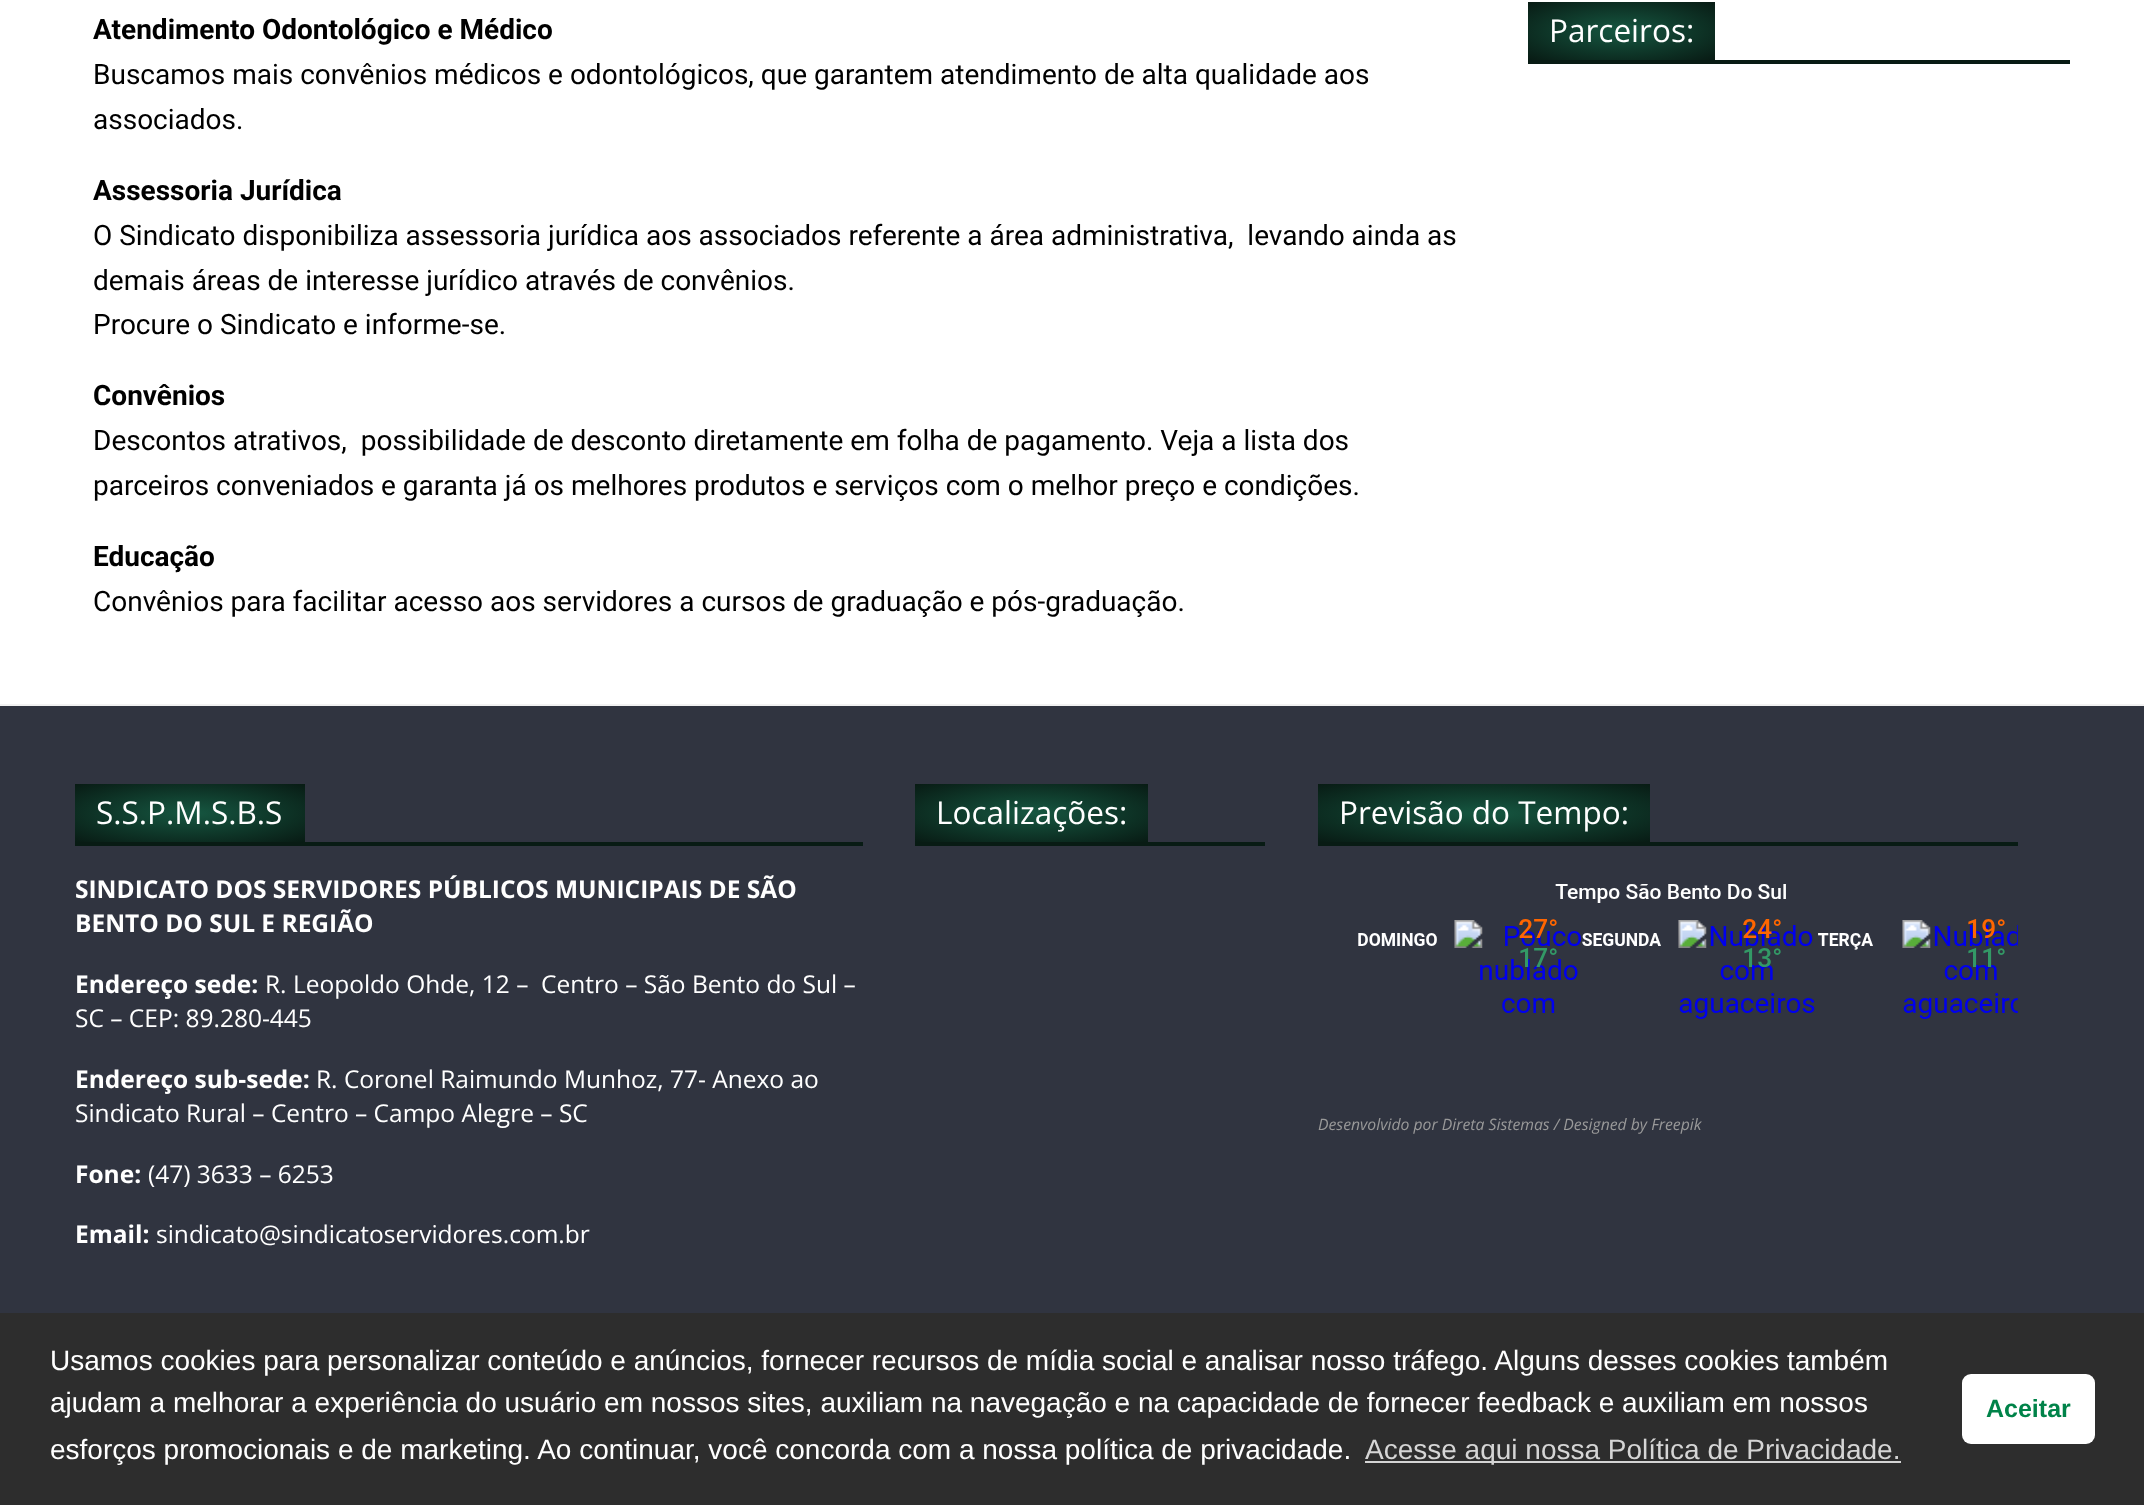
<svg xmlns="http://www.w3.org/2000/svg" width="2144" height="1505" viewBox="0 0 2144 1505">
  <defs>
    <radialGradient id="g1" gradientUnits="userSpaceOnUse" cx="0" cy="0" r="1" gradientTransform="matrix(132 0 0 41 1621 31)"><stop offset="0" stop-color="#165741"/><stop offset="1" stop-color="#081b14"/></radialGradient>
    <radialGradient id="g2" gradientUnits="userSpaceOnUse" cx="0" cy="0" r="1" gradientTransform="matrix(162 0 0 41 190 813)"><stop offset="0" stop-color="#165741"/><stop offset="1" stop-color="#081b14"/></radialGradient>
    <radialGradient id="g3" gradientUnits="userSpaceOnUse" cx="0" cy="0" r="1" gradientTransform="matrix(165 0 0 41 1032 813)"><stop offset="0" stop-color="#165741"/><stop offset="1" stop-color="#081b14"/></radialGradient>
    <radialGradient id="g4" gradientUnits="userSpaceOnUse" cx="0" cy="0" r="1" gradientTransform="matrix(235 0 0 41 1484 813)"><stop offset="0" stop-color="#165741"/><stop offset="1" stop-color="#081b14"/></radialGradient>
  </defs>
  <rect width="100%" height="100%" fill="#fff"/>
  <path d="M1528 60h542v4H1528z" fill="#081b14"/>
  <path d="M1528 2h187v58H1528z" fill="url(#g1)"/>
  <path d="M0 706h2144v607H0z" fill="#303440"/>
  <path d="M0 704h2144v2H0z" fill="#f2f2f2"/>
  <path d="M75 842h788v4H75z" fill="#081b14"/>
  <path d="M75 784h230v58H75z" fill="url(#g2)"/>
  <path d="M915 842h350v4H915z" fill="#081b14"/>
  <path d="M915 784h233v58H915z" fill="url(#g3)"/>
  <path d="M1318 842h700v4H1318z" fill="#081b14"/>
  <path d="M1318 784h332v58H1318z" fill="url(#g4)"/>
  <image x="1358" y="884" width="660" height="135" href="img/1.png"/>
  <path d="M0 1313h2144v192H0z" fill="#2d2d2d"/>
  <path d="M1365 1461h536v2H1365z" fill="#d5d5d5"/>
  <rect x="1962" y="1374" width="133" height="70" rx="9" fill="#fff"/>
  <text x="93" y="39" font-family="Roboto" font-size="28" font-weight="bold" fill="#000">Atendimento Odontológico e Médico</text>
  <g font-family="Roboto" font-size="28" fill="#000">
    <text x="93" y="84">Buscamos mais convênios médicos e odontológicos, que garantem atendimento de alta qualidade aos</text>
    <text x="93" y="129">associados.</text>
  </g>
  <text x="93" y="200" font-family="Roboto" font-size="28" font-weight="bold" fill="#000">Assessoria Jurídica</text>
  <g font-family="Roboto" font-size="28" fill="#000">
    <text x="93" y="245" xml:space="preserve">O Sindicato disponibiliza assessoria jurídica aos associados referente a área administrativa,  levando ainda as</text>
    <text x="93" y="290">demais áreas de interesse jurídico através de convênios.</text>
    <text x="93" y="334">Procure o Sindicato e informe-se.</text>
  </g>
  <text x="93" y="405" font-family="Roboto" font-size="28" font-weight="bold" fill="#000">Convênios</text>
  <g font-family="Roboto" font-size="28" fill="#000">
    <text x="93" y="450" xml:space="preserve">Descontos atrativos,  possibilidade de desconto diretamente em folha de pagamento. Veja a lista dos</text>
    <text x="93" y="495">parceiros conveniados e garanta já os melhores produtos e serviços com o melhor preço e condições.</text>
  </g>
  <text x="93" y="566" font-family="Roboto" font-size="28" font-weight="bold" fill="#000">Educação</text>
  <text x="93" y="611" font-family="Roboto" font-size="28" fill="#000">Convênios para facilitar acesso aos servidores a cursos de graduação e pós-graduação.</text>
  <g font-family="Open Sans" font-size="31.5" fill="#fff">
    <text x="1549" y="42">Parceiros:</text>
    <text x="96" y="824">S.S.P.M.S.B.S</text>
  </g>
  <g font-family="Open Sans" font-size="24.5" font-weight="bold" fill="#fff">
    <text x="75" y="898">SINDICATO DOS SERVIDORES PÚBLICOS MUNICIPAIS DE SÃO</text>
    <text x="75" y="932">BENTO DO SUL E REGIÃO</text>
    <text x="75" y="993">Endereço sede:</text>
  </g>
  <g font-family="Open Sans" font-size="24.5" fill="#fff">
    <text x="265" y="993" xml:space="preserve">R. Leopoldo Ohde, 12 –  Centro – São Bento do Sul –</text>
    <text x="75" y="1027">SC – CEP: 89.280-445</text>
  </g>
  <text x="75" y="1088" font-family="Open Sans" font-size="24.5" font-weight="bold" fill="#fff">Endereço sub-sede:</text>
  <g font-family="Open Sans" font-size="24.5" fill="#fff">
    <text x="316" y="1088">R. Coronel Raimundo Munhoz, 77- Anexo ao</text>
    <text x="75" y="1122">Sindicato Rural – Centro – Campo Alegre – SC</text>
  </g>
  <text x="75" y="1183" font-family="Open Sans" font-size="24.5" font-weight="bold" fill="#fff">Fone:</text>
  <text x="148" y="1183" font-family="Open Sans" font-size="24.5" fill="#fff">(47) 3633 – 6253</text>
  <text x="75" y="1243" font-family="Open Sans" font-size="24.5" font-weight="bold" fill="#fff">Email:</text>
  <text x="156" y="1243" font-family="Open Sans" font-size="24.5" fill="#fff">sindicato@sindicatoservidores.com.br</text>
  <g font-family="Open Sans" font-size="31.5" fill="#fff">
    <text x="936" y="824">Localizações:</text>
    <text x="1339" y="824">Previsão do Tempo:</text>
  </g>
  <text x="1318" y="1130" font-family="Open Sans" font-size="15.75" font-style="italic" fill="#999">Desenvolvido por Direta Sistemas / Designed by Freepik</text>
  <g font-family="Liberation Sans" font-size="28" fill="#fff">
    <text x="50" y="1370">Usamos cookies para personalizar conteúdo e anúncios, fornecer recursos de mídia social e analisar nosso tráfego. Alguns desses cookies também</text>
    <text x="50" y="1412">ajudam a melhorar a experiência do usuário em nossos sites, auxiliam na navegação e na capacidade de fornecer feedback e auxiliam em nossos</text>
    <text x="50" y="1459">esforços promocionais e de marketing. Ao continuar, você concorda com a nossa política de privacidade.</text>
  </g>
  <text x="1365" y="1459" font-family="Liberation Sans" font-size="28" fill="#d5d5d5">Acesse aqui nossa Política de Privacidade.</text>
  <text x="1986" y="1417" font-family="Liberation Sans" font-size="25" font-weight="bold" fill="#008349">Aceitar</text>
</svg>
